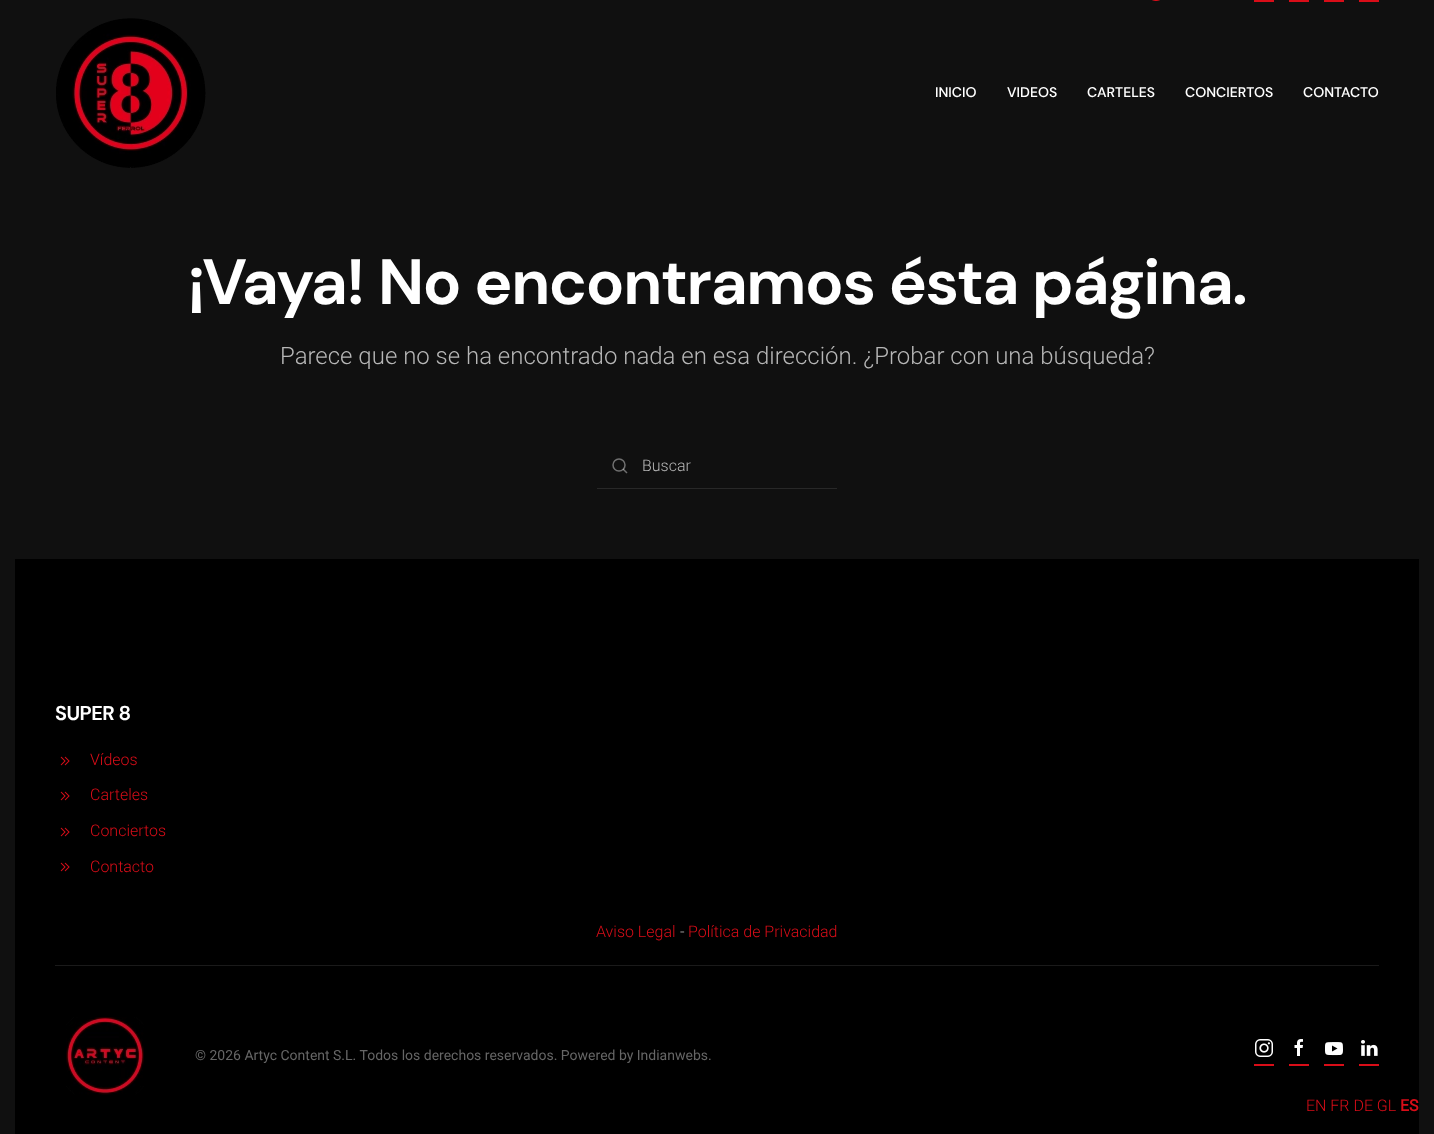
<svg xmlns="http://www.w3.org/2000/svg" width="1434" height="1134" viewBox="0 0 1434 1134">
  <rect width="100%" height="100%" fill="#101010"/>
  <image x="1152" y="0" width="8" height="1" href="img/1.png"/>
  <path d="M1254 0h20v2H1254z" fill="#d90d18"/>
  <path d="M1289 0h20v2H1289z" fill="#d90d18"/>
  <path d="M1324 0h20v2H1324z" fill="#d90d18"/>
  <path d="M1359 0h20v2H1359z" fill="#d90d18"/>
  <image x="56" y="18" width="150" height="150" href="img/2.png"/>
  <circle cx="619" cy="465" r="6" fill="none" stroke="#707070" stroke-width="1.5"/>
  <path d="M623 469L627 473Z" fill="none" stroke="#ffffff66" stroke-width="1.5"/>
  <path d="M597 488h240v1H597z" fill="#282828"/>
  <path d="M15 559h1404v575H15z" fill="#000"/>
  <image x="60" y="756" width="10" height="10" href="img/3.png"/>
  <image x="60" y="791" width="10" height="10" href="img/3.png"/>
  <image x="60" y="827" width="10" height="10" href="img/3.png"/>
  <image x="60" y="862" width="10" height="10" href="img/3.png"/>
  <path d="M55 965h1324v1H55z" fill="#1a1a1a"/>
  <image x="66" y="1017" width="78" height="78" href="img/4.png"/>
  <path d="M1254 1064h20v2H1254z" fill="#d90d18"/>
  <image x="1255" y="1039" width="18" height="18" href="img/5.png"/>
  <path d="M1289 1064h20v2H1289z" fill="#d90d18"/>
  <image x="1294" y="1039" width="9" height="17" href="img/6.png"/>
  <path d="M1324 1064h20v2H1324z" fill="#d90d18"/>
  <image x="1325" y="1042" width="18" height="14" href="img/7.png"/>
  <path d="M1359 1064h20v2H1359z" fill="#d90d18"/>
  <image x="1361" y="1040" width="17" height="16" href="img/8.png"/>
  <g font-family="DM Sans" font-size="14" font-weight="500" fill="#fff">
    <text x="935" y="97">INICIO</text>
    <text x="1007" y="97">VIDEOS</text>
    <text x="1087" y="97">CARTELES</text>
    <text x="1185" y="97">CONCIERTOS</text>
    <text x="1303" y="97">CONTACTO</text>
  </g>
  <text x="187" y="304" font-family="DM Sans" font-size="64" font-weight="bold" letter-spacing="-1.3" fill="#fff">¡Vaya! No encontramos ésta página.</text>
  <text x="280" y="364" font-family="Roboto" font-size="24" font-weight="300" fill="#b7b7b7">Parece que no se ha encontrado nada en esa dirección. ¿Probar con una búsqueda?</text>
  <text x="642" y="471" font-family="Roboto" font-size="16" font-weight="300" fill="#b7b7b7">Buscar</text>
  <text x="55" y="720" font-family="DM Sans" font-size="20" font-weight="bold" letter-spacing="-0.5" fill="#fff">SUPER 8</text>
  <g font-family="Roboto" font-size="16" font-weight="300" fill="#d90d18">
    <text x="90" y="765">Vídeos</text>
    <text x="90" y="800">Carteles</text>
    <text x="90" y="836">Conciertos</text>
    <text x="90" y="872">Contacto</text>
    <text x="596" y="937">Aviso Legal</text>
  </g>
  <text x="680" y="937" font-family="Roboto" font-size="16" font-weight="300" fill="#b7b7b7">-</text>
  <text x="688" y="937" font-family="Roboto" font-size="16" font-weight="300" fill="#d90d18">Política de Privacidad</text>
  <text x="195" y="1060" font-family="Roboto" font-size="14" fill="#666">© 2026 Artyc Content S.L. Todos los derechos reservados. Powered by Indianwebs.</text>
  <text x="1306" y="1111" font-family="Roboto" font-size="16" font-weight="300" fill="#d90d18">EN FR DE GL</text>
  <text x="1400" y="1111" font-family="Roboto" font-size="16" font-weight="bold" fill="#d90d18">ES</text>
</svg>
